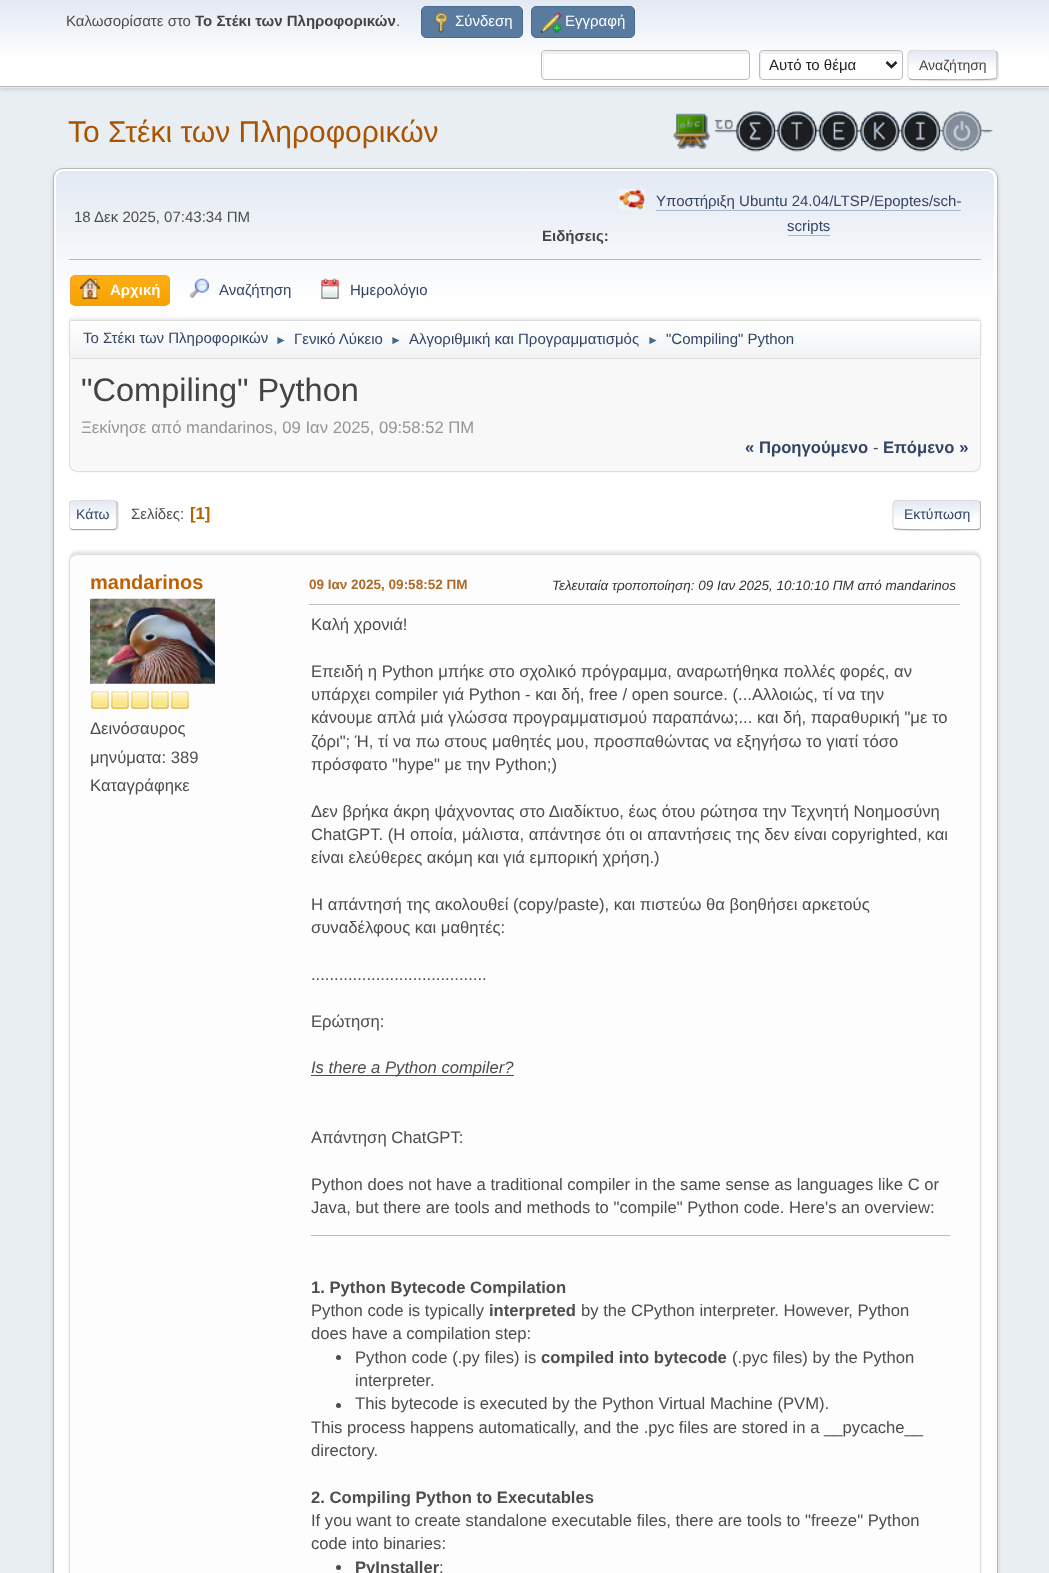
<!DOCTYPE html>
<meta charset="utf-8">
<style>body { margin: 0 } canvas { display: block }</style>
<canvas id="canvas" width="1049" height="1573"></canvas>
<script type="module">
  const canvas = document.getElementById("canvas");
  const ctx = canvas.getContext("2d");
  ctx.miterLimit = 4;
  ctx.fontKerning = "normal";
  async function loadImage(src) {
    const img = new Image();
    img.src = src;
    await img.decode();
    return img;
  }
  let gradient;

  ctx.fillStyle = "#e9eef2";
  ctx.fillRect(0, 0, 1049, 1573);
  ctx.fillStyle = "rgba(0, 0, 0, 0.16)";
  ctx.filter = "blur(2.5px)";
  ctx.beginPath();
  ctx.rect(0, 1, 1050, 88);
  ctx.fill();
  ctx.filter = "none";
  gradient = ctx.createLinearGradient(525, 0, 525, 86);
  gradient.addColorStop(0, "#e2e9f3");
  gradient.addColorStop(0.7, "#ffffff");
  ctx.fillStyle = gradient;
  ctx.fillRect(0, 0, 1049, 86);
  gradient = ctx.createLinearGradient(525, 86, 525, 173);
  gradient.addColorStop(0, "#e2e9f3");
  gradient.addColorStop(0.7, "#ffffff");
  ctx.fillStyle = gradient;
  ctx.fillRect(0, 87, 1049, 1);
  ctx.fillStyle = "#bbbbbb";
  ctx.fillRect(0, 86, 1049, 1);
  ctx.font = "15px Liberation Sans";
  ctx.fillStyle = "#4d4d4d";
  ctx.fillText("Καλωσορίσατε στο", 66, 26);
  ctx.font = "bold 15px Liberation Sans";
  ctx.fillStyle = "#444444";
  ctx.fillText("Το Στέκι των Πληροφορικών", 195, 26);
  ctx.font = "15px Liberation Sans";
  ctx.fillStyle = "#4d4d4d";
  ctx.fillText(".", 396, 26);
  ctx.fillStyle = "#597b9f";
  ctx.beginPath();
  ctx.roundRect(421.5, 6.5, 101, 31, 4.5);
  ctx.fill();
  ctx.strokeStyle = "#4a6b8c";
  ctx.stroke();
  ctx.drawImage(await loadImage("img1.png"), 434, 12, 14, 21);
  ctx.fillStyle = "#ffffff";
  ctx.fillText("Σύνδεση", 455, 26);
  ctx.fillStyle = "#597b9f";
  ctx.beginPath();
  ctx.roundRect(531.5, 6.5, 103, 31, 4.5);
  ctx.fill();
  ctx.stroke();
  ctx.drawImage(await loadImage("img2.png"), 541, 12, 21, 21);
  ctx.fillStyle = "#ffffff";
  ctx.fillText("Εγγραφή", 565, 26);
  ctx.beginPath();
  ctx.roundRect(541, 50, 209, 30, 4);
  ctx.fill();
  ctx.fillStyle = "#ecf1f8";
  ctx.beginPath();
  ctx.moveTo(546, 54);
  ctx.lineTo(749, 54);
  ctx.bezierCurveTo(749, 53, 748, 51, 746, 51);
  ctx.lineTo(546, 51);
  ctx.bezierCurveTo(542, 51, 543, 55, 543, 57);
  ctx.lineTo(543, 76);
  ctx.lineTo(544, 79);
  ctx.lineTo(544, 56);
  ctx.bezierCurveTo(544, 55, 545, 54, 546, 54);
  ctx.closePath();
  ctx.fill();
  ctx.beginPath();
  ctx.roundRect(541.5, 50.5, 208, 29, 3.5);
  ctx.strokeStyle = "#bbbbbb";
  ctx.stroke();
  ctx.fillStyle = "#ffffff";
  ctx.beginPath();
  ctx.roundRect(759, 50, 144, 30, 4);
  ctx.fill();
  ctx.fillStyle = "#ecf1f8";
  ctx.beginPath();
  ctx.moveTo(764, 54);
  ctx.lineTo(901, 54);
  ctx.bezierCurveTo(901, 52, 900, 51, 898, 51);
  ctx.lineTo(762, 51);
  ctx.bezierCurveTo(761, 51, 760, 52, 760, 54);
  ctx.lineTo(760, 76);
  ctx.bezierCurveTo(760, 77, 760, 78, 761, 79);
  ctx.lineTo(761, 56);
  ctx.bezierCurveTo(761, 55, 762, 54, 764, 54);
  ctx.closePath();
  ctx.fill();
  ctx.beginPath();
  ctx.roundRect(759.5, 50.5, 143, 29, 3.5);
  ctx.stroke();
  ctx.beginPath();
  ctx.moveTo(886.5, 62);
  ctx.lineTo(891.5, 67);
  ctx.lineTo(896.5, 62);
  ctx.strokeStyle = "#222222";
  ctx.lineWidth = 2.5;
  ctx.stroke();
  ctx.fillStyle = "#222222";
  ctx.fillText("Αυτό το θέμα", 769, 70);
  ctx.fillStyle = "rgba(221, 221, 221, 0.57)";
  ctx.filter = "blur(0.5px)";
  ctx.beginPath();
  ctx.roundRect(909, 51, 90, 30, 4);
  ctx.fill();
  ctx.filter = "none";
  ctx.fillStyle = "#ffffff";
  ctx.beginPath();
  ctx.roundRect(908, 50, 90, 30, 4);
  ctx.fill();
  ctx.save();
  ctx.beginPath();
  ctx.roundRect(908, 50, 90, 30, 4);
  ctx.clip();
  gradient = ctx.createLinearGradient(953, 51, 953, 79);
  gradient.addColorStop(0, "#e2e9f3");
  gradient.addColorStop(0.7, "#ffffff");
  ctx.fillStyle = gradient;
  ctx.fillRect(908, 51, 90, 28);
  gradient = ctx.createLinearGradient(953, 79, 953, 106);
  gradient.addColorStop(0, "#e2e9f3");
  gradient.addColorStop(0.7, "#ffffff");
  ctx.fillStyle = gradient;
  ctx.fillRect(908, 79, 90, 1);
  ctx.restore();
  ctx.beginPath();
  ctx.moveTo(996, 51.5);
  ctx.bezierCurveTo(996.5, 52, 997, 53, 997, 54);
  ctx.lineTo(997, 76);
  ctx.bezierCurveTo(997, 77, 996.5, 78, 996, 78.5);
  ctx.strokeStyle = "#bbbbbb";
  ctx.lineWidth = 1.2;
  ctx.stroke();
  ctx.beginPath();
  ctx.moveTo(996, 78.5);
  ctx.lineTo(995.5, 78.5);
  ctx.bezierCurveTo(993.5, 80.5, 933, 79.5, 925, 79.5);
  ctx.lineTo(911, 79.5);
  ctx.lineTo(909, 78.5);
  ctx.strokeStyle = "#aaaaaa";
  ctx.stroke();
  ctx.beginPath();
  ctx.moveTo(909, 78.5);
  ctx.bezierCurveTo(907, 76.5, 908, 67.5, 908, 65);
  ctx.bezierCurveTo(908, 47.5, 906, 50.5, 925, 50.5);
  ctx.lineTo(994, 50.5);
  ctx.lineTo(996, 51.5);
  ctx.strokeStyle = "#dddddd";
  ctx.stroke();
  ctx.font = "14px Liberation Sans";
  ctx.fillStyle = "#444444";
  ctx.fillText("Αναζήτηση", 919, 70);
  ctx.font = "30px Liberation Sans";
  ctx.fillStyle = "#a85400";
  ctx.fillText("Το Στέκι των Πληροφορικών", 68, 142);
  ctx.drawImage(await loadImage("img3.png"), 673, 111, 320, 41);
  ctx.fillStyle = "rgba(0, 0, 0, 0.14)";
  ctx.filter = "blur(2px)";
  ctx.beginPath();
  ctx.roundRect(53, 170, 945, 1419, 10);
  ctx.fill();
  ctx.filter = "none";
  ctx.fillStyle = "#ffffff";
  ctx.beginPath();
  ctx.roundRect(53.5, 168.5, 944, 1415, 9.5);
  ctx.fill();
  ctx.strokeStyle = "#b8b8b8";
  ctx.lineWidth = 1;
  ctx.stroke();
  gradient = ctx.createLinearGradient(525, 171, 525, 361);
  gradient.addColorStop(0, "#e2e9f3");
  gradient.addColorStop(0.7, "#ffffff");
  ctx.fillStyle = gradient;
  ctx.beginPath();
  ctx.roundRect(56, 171, 938, 190, [8, 8, 0, 0]);
  ctx.fill();
  ctx.fillStyle = "#bbbbbb";
  ctx.fillRect(69, 259, 912, 1);
  ctx.font = "15px Liberation Sans";
  ctx.fillStyle = "#4d4d4d";
  ctx.fillText("18 Δεκ 2025, 07:43:34 ΠΜ", 74, 222);
  ctx.drawImage(await loadImage("img4.png"), 618, 189, 27, 21);
  ctx.fillStyle = "#334466";
  ctx.fillText("Υποστήριξη Ubuntu 24.04/LTSP/Epoptes/sch-", 656, 206);
  ctx.fillStyle = "#a8b6cf";
  ctx.fillRect(656, 210, 305, 1);
  ctx.fillStyle = "#334466";
  ctx.fillText("scripts", 787, 231);
  ctx.fillStyle = "#a8b6cf";
  ctx.fillRect(788, 235, 42, 1);
  ctx.font = "bold 15px Liberation Sans";
  ctx.fillStyle = "#444444";
  ctx.fillText("Ειδήσεις:", 542, 241);
  ctx.save();
  ctx.beginPath();
  ctx.roundRect(70, 275, 100, 31, 5);
  ctx.clip();
  gradient = ctx.createLinearGradient(120, 276, 120, 305);
  gradient.addColorStop(0, "#ffae14");
  gradient.addColorStop(1, "#f5a100");
  ctx.fillStyle = gradient;
  ctx.fillRect(70, 276, 100, 29);
  ctx.restore();
  ctx.beginPath();
  ctx.roundRect(70.5, 275.5, 99, 30, 4.5);
  ctx.strokeStyle = "#f49a3a";
  ctx.stroke();
  ctx.drawImage(await loadImage("img5.png"), 80, 278, 20, 21);
  ctx.fillStyle = "#ffffff";
  ctx.fillText("Αρχική", 110, 295);
  ctx.drawImage(await loadImage("img6.png"), 189, 278, 20, 20);
  ctx.font = "15px Liberation Sans";
  ctx.fillStyle = "#334466";
  ctx.fillText("Αναζήτηση", 219, 295);
  ctx.drawImage(await loadImage("img7.png"), 321, 278, 18, 21);
  ctx.fillText("Ημερολόγιο", 350, 295);
  ctx.fillStyle = "rgba(0, 0, 0, 0.08)";
  ctx.filter = "blur(1px)";
  ctx.beginPath();
  ctx.roundRect(69, 318, 912, 38, 2.5);
  ctx.fill();
  ctx.filter = "none";
  ctx.save();
  ctx.beginPath();
  ctx.roundRect(69, 320, 912, 39, 2.5);
  ctx.clip();
  gradient = ctx.createLinearGradient(525, 321, 525, 358);
  gradient.addColorStop(0, "#ffffff");
  gradient.addColorStop(0.95, "#f1f3f5");
  ctx.fillStyle = gradient;
  ctx.fillRect(69, 321, 912, 37);
  ctx.restore();
  ctx.beginPath();
  ctx.roundRect(69.5, 320.5, 911, 38, 2);
  ctx.strokeStyle = "#dddddd";
  ctx.stroke();
  ctx.fillStyle = "#334466";
  ctx.fillText("Το Στέκι των Πληροφορικών", 83, 343);
  ctx.font = "12px Liberation Sans";
  ctx.fillStyle = "#3f6b8c";
  ctx.fillText("►", 275, 344);
  ctx.font = "15px Liberation Sans";
  ctx.fillStyle = "#334466";
  ctx.fillText("Γενικό Λύκειο", 294, 344);
  ctx.font = "12px Liberation Sans";
  ctx.fillStyle = "#3f6b8c";
  ctx.fillText("►", 390, 344);
  ctx.font = "15px Liberation Sans";
  ctx.fillStyle = "#334466";
  ctx.fillText("Αλγοριθμική και Προγραμματισμός", 409, 344);
  ctx.font = "12px Liberation Sans";
  ctx.fillStyle = "#3f6b8c";
  ctx.fillText("►", 647, 344);
  ctx.font = "15px Liberation Sans";
  ctx.fillStyle = "#334466";
  ctx.fillText("\"Compiling\" Python", 666, 344);
  ctx.fillStyle = "#f8f8f8";
  ctx.beginPath();
  ctx.roundRect(69, 359, 912, 114, [0, 0, 9, 9]);
  ctx.fill();
  ctx.fillStyle = "#dddddd";
  ctx.beginPath();
  ctx.moveTo(69, 359);
  ctx.lineTo(981, 359);
  ctx.lineTo(981, 464);
  ctx.bezierCurveTo(981, 469, 977, 472, 972, 472);
  ctx.lineTo(78, 472);
  ctx.bezierCurveTo(73, 472, 69, 469, 69, 464);
  ctx.closePath();
  ctx.moveTo(70, 359);
  ctx.lineTo(980, 359);
  ctx.lineTo(980, 464);
  ctx.bezierCurveTo(980, 468, 977, 471, 972, 471);
  ctx.lineTo(78, 471);
  ctx.bezierCurveTo(73, 471, 70, 468, 70, 464);
  ctx.closePath();
  ctx.fill("evenodd");
  ctx.font = "32.5px Liberation Sans";
  ctx.fillStyle = "#444444";
  ctx.fillText("\"Compiling\" Python", 81, 401);
  ctx.font = "16.65px Liberation Sans";
  ctx.fillStyle = "#959595";
  ctx.fillText("Ξεκίνησε από mandarinos, 09 Ιαν 2025, 09:58:52 ΠΜ", 81, 433);
  ctx.font = "bold 16.65px Liberation Sans";
  ctx.fillStyle = "#334466";
  ctx.fillText("« Προηγούμενο", 745, 453);
  ctx.font = "16.65px Liberation Sans";
  ctx.fillStyle = "#4d4d4d";
  ctx.fillText("-", 873, 453);
  ctx.font = "bold 16.65px Liberation Sans";
  ctx.fillStyle = "#334466";
  ctx.fillText("Επόμενο »", 883, 453);
  ctx.fillStyle = "rgba(221, 221, 221, 0.57)";
  ctx.filter = "blur(0.5px)";
  ctx.beginPath();
  ctx.roundRect(70, 501, 49, 30, 4);
  ctx.fill();
  ctx.filter = "none";
  ctx.fillStyle = "#ffffff";
  ctx.beginPath();
  ctx.roundRect(69, 500, 49, 30, 4);
  ctx.fill();
  ctx.save();
  ctx.beginPath();
  ctx.roundRect(69, 500, 49, 30, 4);
  ctx.clip();
  gradient = ctx.createLinearGradient(93, 501, 93, 529);
  gradient.addColorStop(0, "#e2e9f3");
  gradient.addColorStop(0.7, "#ffffff");
  ctx.fillStyle = gradient;
  ctx.fillRect(69, 501, 49, 28);
  gradient = ctx.createLinearGradient(93, 529, 93, 556);
  gradient.addColorStop(0, "#e2e9f3");
  gradient.addColorStop(0.7, "#ffffff");
  ctx.fillStyle = gradient;
  ctx.fillRect(69, 529, 49, 1);
  ctx.restore();
  ctx.beginPath();
  ctx.moveTo(116, 501.5);
  ctx.bezierCurveTo(116.5, 502, 117, 503, 117, 504);
  ctx.lineTo(117, 526);
  ctx.bezierCurveTo(117, 527, 116.5, 528, 116, 528.5);
  ctx.strokeStyle = "#bbbbbb";
  ctx.lineWidth = 1.2;
  ctx.stroke();
  ctx.beginPath();
  ctx.moveTo(116, 528.5);
  ctx.lineTo(114, 529.5);
  ctx.lineTo(72.5, 529.5);
  ctx.lineTo(70.5, 528.5);
  ctx.strokeStyle = "#aaaaaa";
  ctx.stroke();
  ctx.save();
  ctx.beginPath();
  ctx.rect(69, 491, 912, 48);
  ctx.clip();
  ctx.beginPath();
  ctx.moveTo(70.5, 528.5);
  ctx.bezierCurveTo(68, 526.5, 69.5, 517.5, 69.5, 515);
  ctx.bezierCurveTo(69.5, 501, 66.5, 500.5, 79.5, 500.5);
  ctx.lineTo(107, 500.5);
  ctx.bezierCurveTo(108, 500.5, 114, 499.5, 116, 501.5);
  ctx.strokeStyle = "#dddddd";
  ctx.stroke();
  ctx.restore();
  ctx.font = "14px Liberation Sans";
  ctx.fillStyle = "#334466";
  ctx.fillText("Κάτω", 76, 519);
  ctx.font = "15px Liberation Sans";
  ctx.fillStyle = "#4d4d4d";
  ctx.fillText("Σελίδες:", 131, 519);
  ctx.font = "bold 16.65px Liberation Sans";
  ctx.fillStyle = "#b46100";
  ctx.fillText("[1]", 190, 519);
  ctx.save();
  ctx.beginPath();
  ctx.rect(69, 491, 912, 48);
  ctx.clip();
  ctx.fillStyle = "rgba(221, 221, 221, 0.57)";
  ctx.filter = "blur(0.5px)";
  ctx.beginPath();
  ctx.roundRect(894, 501, 89, 30, 4);
  ctx.fill();
  ctx.filter = "none";
  ctx.restore();
  ctx.save();
  ctx.beginPath();
  ctx.roundRect(893, 500, 88, 30, 4);
  ctx.clip();
  gradient = ctx.createLinearGradient(937, 501, 937, 529);
  gradient.addColorStop(0, "#e2e9f3");
  gradient.addColorStop(0.7, "#ffffff");
  ctx.fillStyle = gradient;
  ctx.fillRect(893, 501, 88, 28);
  gradient = ctx.createLinearGradient(937, 529, 937, 556);
  gradient.addColorStop(0, "#e2e9f3");
  gradient.addColorStop(0.7, "#ffffff");
  ctx.fillStyle = gradient;
  ctx.fillRect(893, 529, 88, 1);
  ctx.restore();
  ctx.save();
  ctx.beginPath();
  ctx.rect(69, 491, 912, 48);
  ctx.clip();
  ctx.beginPath();
  ctx.moveTo(979.5, 501.5);
  ctx.bezierCurveTo(980.5, 502, 980.5, 503, 980.5, 504);
  ctx.lineTo(980.5, 526);
  ctx.bezierCurveTo(980.5, 527, 980.5, 528, 979.5, 528.5);
  ctx.strokeStyle = "#bbbbbb";
  ctx.stroke();
  ctx.restore();
  ctx.beginPath();
  ctx.moveTo(979.5, 528.5);
  ctx.lineTo(977.5, 529.5);
  ctx.lineTo(964, 529.5);
  ctx.bezierCurveTo(956.5, 529.5, 896.5, 530.5, 894.5, 528.5);
  ctx.lineTo(894, 528.5);
  ctx.stroke();
  ctx.beginPath();
  ctx.moveTo(894, 528.5);
  ctx.bezierCurveTo(892, 526.5, 893, 517.5, 893, 515);
  ctx.bezierCurveTo(893, 497.5, 891, 500.5, 910, 500.5);
  ctx.lineTo(977.5, 500.5);
  ctx.lineTo(979.5, 501.5);
  ctx.strokeStyle = "#dddddd";
  ctx.stroke();
  ctx.font = "14px Liberation Sans";
  ctx.fillStyle = "#334466";
  ctx.fillText("Εκτύπωση", 904, 519);
  ctx.fillStyle = "rgba(0, 0, 0, 0.1)";
  ctx.filter = "blur(1px)";
  ctx.beginPath();
  ctx.roundRect(69, 551, 912, 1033, 8);
  ctx.fill();
  ctx.filter = "none";
  ctx.fillStyle = "#fdfdfd";
  ctx.beginPath();
  ctx.roundRect(69.5, 554.5, 911, 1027, 7.5);
  ctx.fill();
  ctx.lineWidth = 1;
  ctx.stroke();
  ctx.font = "bold 20px Liberation Sans";
  ctx.fillStyle = "#c06002";
  ctx.fillText("mandarinos", 90, 589);
  ctx.drawImage(await loadImage("img8.png"), 90, 598, 125, 86);
  ctx.drawImage(await loadImage("img9.png"), 91, 691, 18, 18);
  ctx.drawImage(await loadImage("img9.png"), 111, 691, 18, 18);
  ctx.drawImage(await loadImage("img9.png"), 131, 691, 18, 18);
  ctx.drawImage(await loadImage("img9.png"), 151, 691, 18, 18);
  ctx.drawImage(await loadImage("img9.png"), 171, 691, 18, 18);
  ctx.font = "16.65px Liberation Sans";
  ctx.fillStyle = "#4d4d4d";
  ctx.fillText("Δεινόσαυρος", 90, 734);
  ctx.fillText("μηνύματα: 389", 90, 763);
  ctx.fillText("Καταγράφηκε", 90, 791);
  ctx.font = "bold 13.5px Liberation Sans";
  ctx.fillStyle = "#ad6825";
  ctx.fillText("09 Ιαν 2025, 09:58:52 ΠΜ", 309, 589);
  ctx.font = "italic 13.5px Liberation Sans";
  ctx.fillStyle = "#333333";
  ctx.fillText("Τελευταία τροποποίηση: 09 Ιαν 2025, 10:10:10 ΠΜ από mandarinos", 552, 590);
  ctx.fillStyle = "#bfbfbf";
  ctx.fillRect(309, 604, 651, 1);
  ctx.font = "16.65px Liberation Sans";
  ctx.fillStyle = "#4d4d4d";
  ctx.fillText("Καλή χρονιά!", 311, 630);
  ctx.fillText("Επειδή η Python μπήκε στο σχολικό πρόγραμμα, αναρωτήθηκα πολλές φορές, αν", 311, 677);
  ctx.fillText("υπάρχει compiler γιά Python - και δή, free / open source. (...Αλλοιώς, τί να την", 311, 700);
  ctx.fillText("κάνουμε απλά μιά γλώσσα προγραμματισμού παραπάνω;... και δή, παραθυρική \"με το", 311, 723);
  ctx.fillText("ζόρι\"; Ή, τί να πω στους μαθητές μου, προσπαθώντας να εξηγήσω το γιατί τόσο", 311, 747);
  ctx.fillText("πρόσφατο \"hype\" με την Python;)", 311, 770);
  ctx.fillText("Δεν βρήκα άκρη ψάχνοντας στο Διαδίκτυο, έως ότου ρώτησα την Τεχνητή Νοημοσύνη", 311, 817);
  ctx.fillText("ChatGPT. (Η οποία, μάλιστα, απάντησε ότι οι απαντήσεις της δεν είναι copyrighted, και", 311, 840);
  ctx.fillText("είναι ελεύθερες ακόμη και γιά εμπορική χρήση.)", 311, 863);
  ctx.fillText("Η απάντησή της ακολουθεί (copy/paste), και πιστεύω θα βοηθήσει αρκετούς", 311, 910);
  ctx.fillText("συναδέλφους και μαθητές:", 311, 933);
  ctx.fillText("......................................", 311, 980);
  ctx.fillText("Ερώτηση:", 311, 1027);
  ctx.fillRect(311, 1075, 203, 1);
  ctx.font = "italic 16.65px Liberation Sans";
  ctx.fillText("Is there a Python compiler?", 311, 1073);
  ctx.font = "16.65px Liberation Sans";
  ctx.fillText("Απάντηση ChatGPT:", 311, 1143);
  ctx.fillText("Python does not have a traditional compiler in the same sense as languages like C or", 311, 1190);
  ctx.fillText("Java, but there are tools and methods to \"compile\" Python code. Here's an overview:", 311, 1213);
  ctx.fillStyle = "#bbbbbb";
  ctx.fillRect(311, 1235, 639, 1);
  ctx.font = "bold 16.65px Liberation Sans";
  ctx.fillStyle = "#4d4d4d";
  ctx.fillText("1. Python Bytecode Compilation", 311, 1293);
  ctx.font = "16.65px Liberation Sans";
  ctx.fillText("Python code is typically", 311, 1316);
  ctx.font = "bold 16.65px Liberation Sans";
  ctx.fillText("interpreted", 489, 1316);
  ctx.font = "16.65px Liberation Sans";
  ctx.fillText("by the CPython interpreter. However, Python", 581, 1316);
  ctx.fillText("does have a compilation step:", 311, 1339);
  ctx.beginPath();
  ctx.arc(338.5, 1357.5, 2.5, 0, Math.PI * 2);
  ctx.fill();
  ctx.fillText("Python code (.py files) is", 355, 1363);
  ctx.font = "bold 16.65px Liberation Sans";
  ctx.fillText("compiled into bytecode", 541, 1363);
  ctx.font = "16.65px Liberation Sans";
  ctx.fillText("(.pyc files) by the Python", 732, 1363);
  ctx.fillText("interpreter.", 355, 1386);
  ctx.beginPath();
  ctx.arc(338.5, 1405.5, 2.5, 0, Math.PI * 2);
  ctx.fill();
  ctx.fillText("This bytecode is executed by the Python Virtual Machine (PVM).", 355, 1409);
  ctx.fillText("This process happens automatically, and the .pyc files are stored in a __pycache__", 311, 1433);
  ctx.fillText("directory.", 311, 1456);
  ctx.font = "bold 16.65px Liberation Sans";
  ctx.fillText("2. Compiling Python to Executables", 311, 1503);
  ctx.font = "16.65px Liberation Sans";
  ctx.fillText("If you want to create standalone executable files, there are tools to \"freeze\" Python", 311, 1526);
  ctx.fillText("code into binaries:", 311, 1549);
  ctx.beginPath();
  ctx.arc(338.5, 1567.5, 2.5, 0, Math.PI * 2);
  ctx.fill();
  ctx.font = "bold 16.65px Liberation Sans";
  ctx.fillText("PyInstaller", 355, 1573);
  ctx.font = "16.65px Liberation Sans";
  ctx.fillText(":", 439, 1573);
</script>
